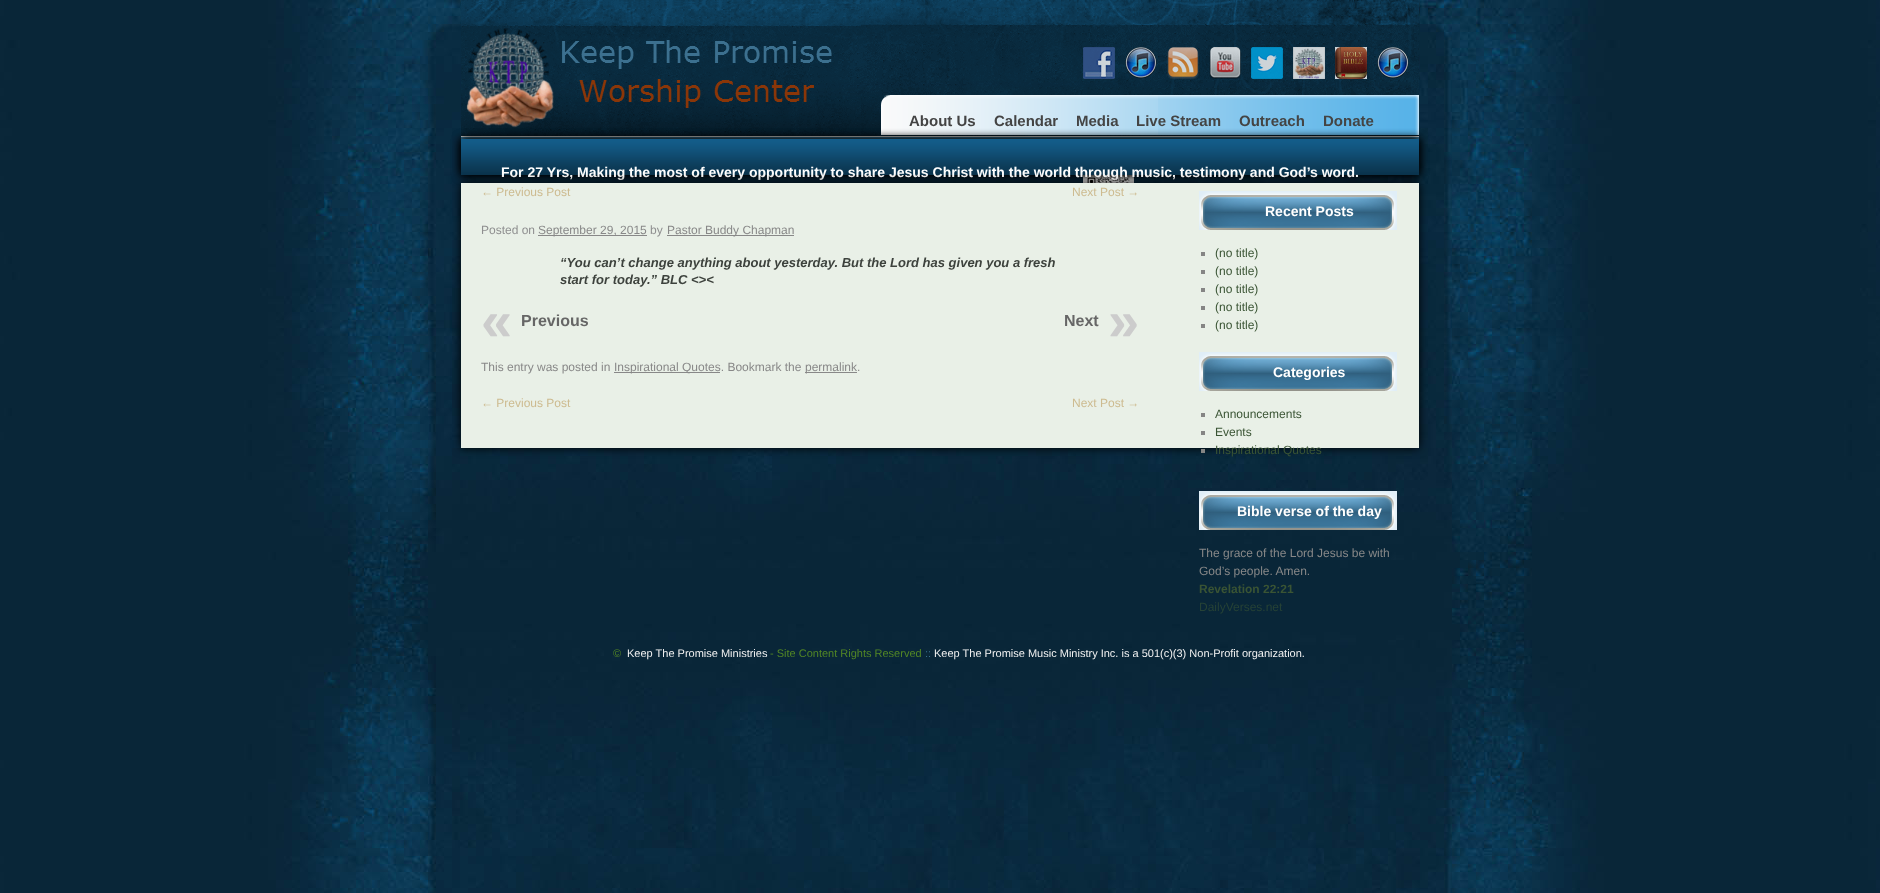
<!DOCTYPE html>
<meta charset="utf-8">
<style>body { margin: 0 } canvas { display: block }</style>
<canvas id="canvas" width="1880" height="893"></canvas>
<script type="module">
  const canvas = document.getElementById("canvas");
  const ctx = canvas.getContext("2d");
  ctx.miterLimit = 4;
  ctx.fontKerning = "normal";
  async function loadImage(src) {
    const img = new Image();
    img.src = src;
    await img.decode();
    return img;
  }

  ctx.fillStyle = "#ffffff";
  ctx.fillRect(0, 0, 1880, 893);
  ctx.drawImage(await loadImage("img1.png"), 0, 0, 1880, 893);
  ctx.drawImage(await loadImage("img2.png"), 461, 0, 400, 139);
  ctx.drawImage(await loadImage("img3.png"), 461, 28, 394, 108);
  ctx.drawImage(await loadImage("img4.png"), 861, 0, 558, 139);
  ctx.drawImage(await loadImage("img5.png"), 1083, 47, 32, 32);
  ctx.drawImage(await loadImage("img6.png"), 1125, 47, 32, 32);
  ctx.drawImage(await loadImage("img7.png"), 1167, 47, 32, 32);
  ctx.drawImage(await loadImage("img8.png"), 1209, 47, 32, 32);
  ctx.drawImage(await loadImage("img9.png"), 1251, 47, 32, 32);
  ctx.drawImage(await loadImage("img10.png"), 1293, 47, 32, 32);
  ctx.drawImage(await loadImage("img11.png"), 1335, 47, 32, 32);
  ctx.drawImage(await loadImage("img12.png"), 1377, 47, 32, 32);
  ctx.drawImage(await loadImage("img13.png"), 1083, 175, 51, 8);
  ctx.fillStyle = "#000000";
  ctx.filter = "blur(5px)";
  ctx.beginPath();
  ctx.rect(461, 139, 958, 36);
  ctx.fill();
  ctx.filter = "none";
  ctx.drawImage(await loadImage("img14.png"), 461, 139, 958, 36);
  ctx.save();
  ctx.beginPath();
  ctx.moveTo(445, 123);
  ctx.lineTo(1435, 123);
  ctx.lineTo(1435, 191);
  ctx.lineTo(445, 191);
  ctx.closePath();
  ctx.moveTo(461, 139);
  ctx.lineTo(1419, 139);
  ctx.lineTo(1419, 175);
  ctx.lineTo(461, 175);
  ctx.closePath();
  ctx.clip("evenodd");
  ctx.filter = "blur(5px)";
  ctx.beginPath();
  ctx.rect(461, 139, 958, 36);
  ctx.fill();
  ctx.filter = "none";
  ctx.restore();
  ctx.font = "bold 15px Liberation Sans";
  ctx.fillStyle = "#444444";
  ctx.fillText("About Us", 909, 126);
  ctx.fillText("Calendar", 994, 126);
  ctx.fillText("Media", 1076, 126);
  ctx.fillText("Live Stream", 1136, 126);
  ctx.fillText("Outreach", 1239, 126);
  ctx.fillText("Donate", 1323, 126);
  ctx.font = "bold 14px Liberation Sans";
  ctx.fillStyle = "#ffffff";
  ctx.fillText("For 27 Yrs, Making the most of every opportunity to share Jesus Christ with the world through music, testimony and God’s word.", 501, 177);
  ctx.fillStyle = "#000000";
  ctx.filter = "blur(5px)";
  ctx.beginPath();
  ctx.rect(461, 183, 958, 265);
  ctx.fill();
  ctx.filter = "none";
  ctx.fillStyle = "#e9f0e7";
  ctx.fillRect(461, 183, 958, 265);
  ctx.font = "12px Liberation Sans";
  ctx.fillStyle = "#cdbb90";
  ctx.fillText("← Previous Post", 481, 196);
  ctx.fillText("Next Post →", 1072, 196);
  ctx.fillStyle = "#8f8f90";
  ctx.fillText("Posted on", 481, 234);
  ctx.fillStyle = "#888888";
  ctx.fillRect(538, 235, 109, 1);
  ctx.fillText("September 29, 2015", 538, 234);
  ctx.fillStyle = "#8f8f90";
  ctx.fillText("by", 650, 234);
  ctx.fillStyle = "#888888";
  ctx.fillRect(667, 235, 127, 1);
  ctx.fillText("Pastor Buddy Chapman", 667, 234);
  ctx.font = "italic bold 13px Liberation Sans";
  ctx.fillStyle = "#3d423d";
  ctx.fillText("“You can’t change anything about yesterday. But the Lord has given you a fresh", 560, 267);
  ctx.fillText("start for today.” BLC <><", 560, 284);
  ctx.font = "bold 56px Liberation Sans";
  ctx.fillStyle = "#cccccc";
  ctx.fillText("«", 481, 340);
  ctx.font = "bold 16px Liberation Sans";
  ctx.fillStyle = "#666666";
  ctx.fillText("Previous", 521, 326);
  ctx.fillText("Next", 1064, 326);
  ctx.font = "bold 56px Liberation Sans";
  ctx.fillStyle = "#cccccc";
  ctx.fillText("»", 1108, 340);
  ctx.font = "12px Liberation Sans";
  ctx.fillStyle = "#888888";
  ctx.fillText("This entry was posted in", 481, 371);
  ctx.fillRect(614, 372, 106, 1);
  ctx.fillText("Inspirational Quotes. Bookmark the", 614, 371);
  ctx.fillRect(805, 372, 52, 1);
  ctx.fillText("permalink.", 805, 371);
  ctx.fillStyle = "#cdbb90";
  ctx.fillText("← Previous Post", 481, 407);
  ctx.fillText("Next Post →", 1072, 407);
  ctx.drawImage(await loadImage("img15.png"), 1199, 191, 198, 39);
  ctx.font = "bold 14px Liberation Sans";
  ctx.fillStyle = "#ffffff";
  ctx.fillText("Recent Posts", 1265, 216);
  ctx.fillStyle = "#858584";
  ctx.fillRect(1201, 252, 4, 4);
  ctx.font = "12px Liberation Sans";
  ctx.fillStyle = "#3a5434";
  ctx.fillText("(no title)", 1215, 257);
  ctx.fillStyle = "#858584";
  ctx.fillRect(1201, 270, 4, 4);
  ctx.fillStyle = "#3a5434";
  ctx.fillText("(no title)", 1215, 275);
  ctx.fillStyle = "#858584";
  ctx.fillRect(1201, 288, 4, 4);
  ctx.fillStyle = "#3a5434";
  ctx.fillText("(no title)", 1215, 293);
  ctx.fillStyle = "#858584";
  ctx.fillRect(1201, 306, 4, 4);
  ctx.fillStyle = "#3a5434";
  ctx.fillText("(no title)", 1215, 311);
  ctx.fillStyle = "#858584";
  ctx.fillRect(1201, 324, 4, 4);
  ctx.fillStyle = "#3a5434";
  ctx.fillText("(no title)", 1215, 329);
  ctx.drawImage(await loadImage("img15.png"), 1199, 352, 198, 39);
  ctx.font = "bold 14px Liberation Sans";
  ctx.fillStyle = "#ffffff";
  ctx.fillText("Categories", 1273, 377);
  ctx.fillStyle = "#858584";
  ctx.fillRect(1201, 413, 4, 4);
  ctx.font = "12px Liberation Sans";
  ctx.fillStyle = "#3a5434";
  ctx.fillText("Announcements", 1215, 418);
  ctx.fillStyle = "#858584";
  ctx.fillRect(1201, 431, 4, 4);
  ctx.fillStyle = "#3a5434";
  ctx.fillText("Events", 1215, 436);
  ctx.fillStyle = "#858584";
  ctx.fillRect(1201, 449, 4, 4);
  ctx.fillStyle = "#3a5434";
  ctx.fillText("Inspirational Quotes", 1215, 454);
  ctx.drawImage(await loadImage("img15.png"), 1199, 491, 198, 39);
  ctx.font = "bold 14px Liberation Sans";
  ctx.fillStyle = "#ffffff";
  ctx.fillText("Bible verse of the day", 1237, 516);
  ctx.font = "12px Liberation Sans";
  ctx.fillStyle = "#888888";
  ctx.fillText("The grace of the Lord Jesus be with", 1199, 557);
  ctx.fillText("God’s people. Amen.", 1199, 575);
  ctx.font = "bold 12px Liberation Sans";
  ctx.fillStyle = "#3a5434";
  ctx.fillText("Revelation 22:21", 1199, 593);
  ctx.font = "12px Liberation Sans";
  ctx.fillStyle = "#264236";
  ctx.fillText("DailyVerses.net", 1199, 611);
  ctx.font = "11px Liberation Sans";
  ctx.fillStyle = "#528625";
  ctx.fillText("©", 613, 657);
  ctx.fillStyle = "#f1f1f1";
  ctx.fillText("Keep The Promise Ministries", 627, 657);
  ctx.fillStyle = "#528625";
  ctx.fillText("- Site Content Rights Reserved", 770, 657);
  ctx.fillStyle = "#386f8e";
  ctx.fillText("::", 925, 657);
  ctx.fillStyle = "#f1f1f1";
  ctx.fillText("Keep The Promise Music Ministry Inc. is a 501(c)(3) Non-Profit organization.", 934, 657);
</script>
